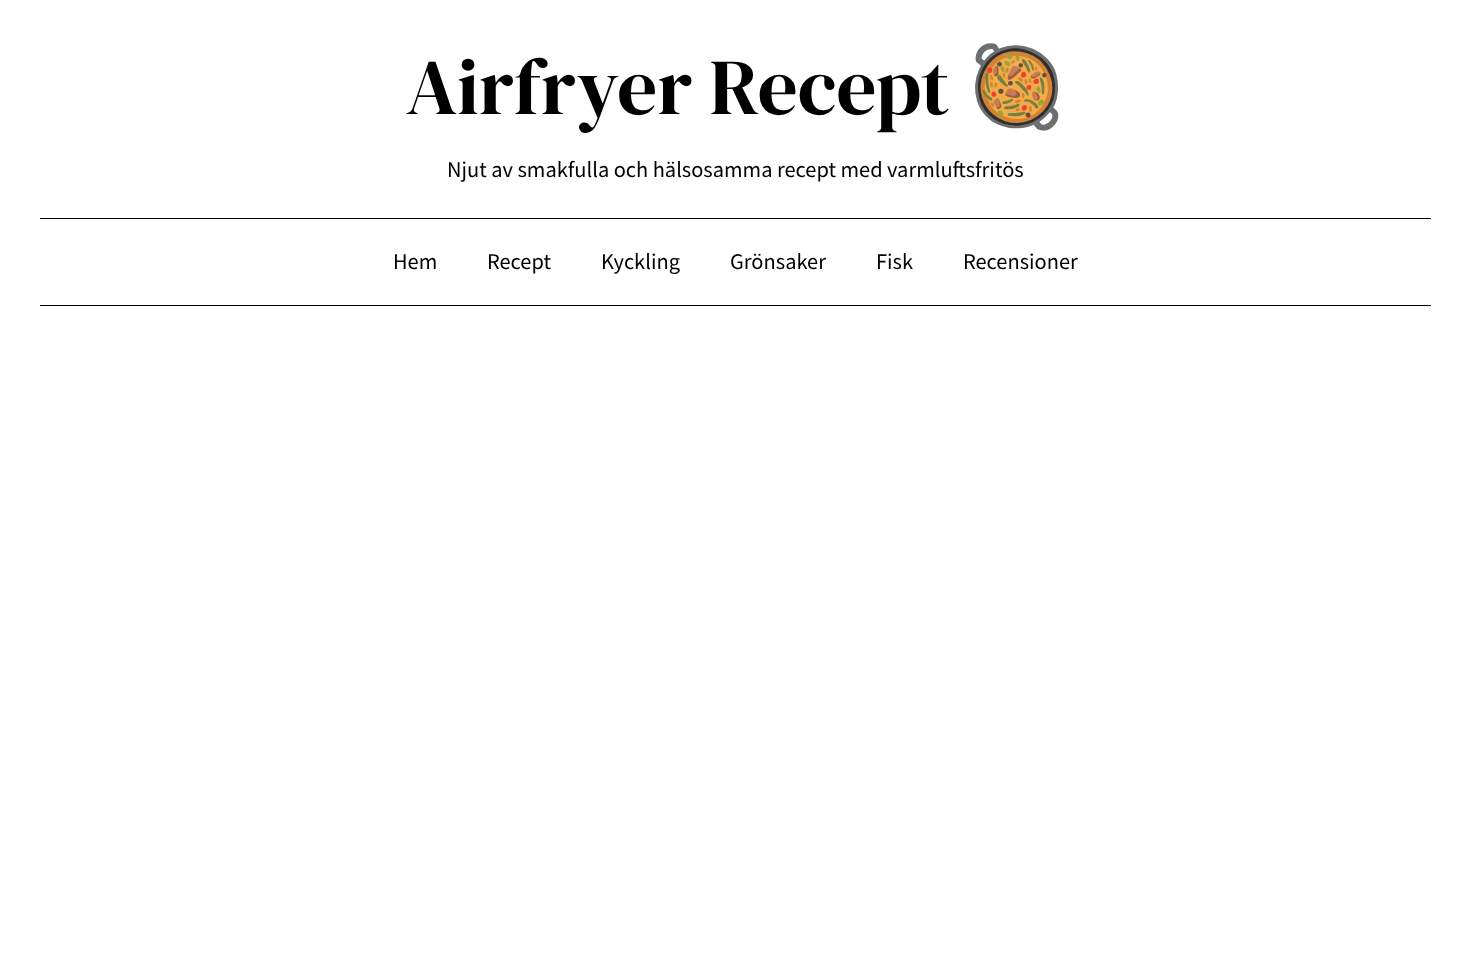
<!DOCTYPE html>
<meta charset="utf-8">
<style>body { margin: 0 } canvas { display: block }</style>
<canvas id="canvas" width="1471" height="970"></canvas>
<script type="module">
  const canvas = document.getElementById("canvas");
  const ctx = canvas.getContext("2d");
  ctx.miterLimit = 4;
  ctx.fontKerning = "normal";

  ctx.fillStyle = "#ffffff";
  ctx.fillRect(0, 0, 1471, 970);
  ctx.font = "79px DM Serif Display";
  ctx.fillStyle = "#000000";
  ctx.fillText("Airfryer Recept", 406, 114);
  ctx.font = "bold 79px Noto Color Emoji";
  ctx.fillText("🥘", 967, 114);
  ctx.font = "22.4px Source Sans Pro";
  ctx.fillText("Njut av smakfulla och hälsosamma recept med varmluftsfritös", 447, 177);
  ctx.fillRect(40, 218, 1391, 1);
  ctx.fillRect(40, 305, 1391, 1);
  ctx.fillText("Hem", 393, 269);
  ctx.fillText("Recept", 487, 269);
  ctx.fillText("Kyckling", 601, 269);
  ctx.fillText("Grönsaker", 730, 269);
  ctx.fillText("Fisk", 876, 269);
  ctx.fillText("Recensioner", 963, 269);
</script>
